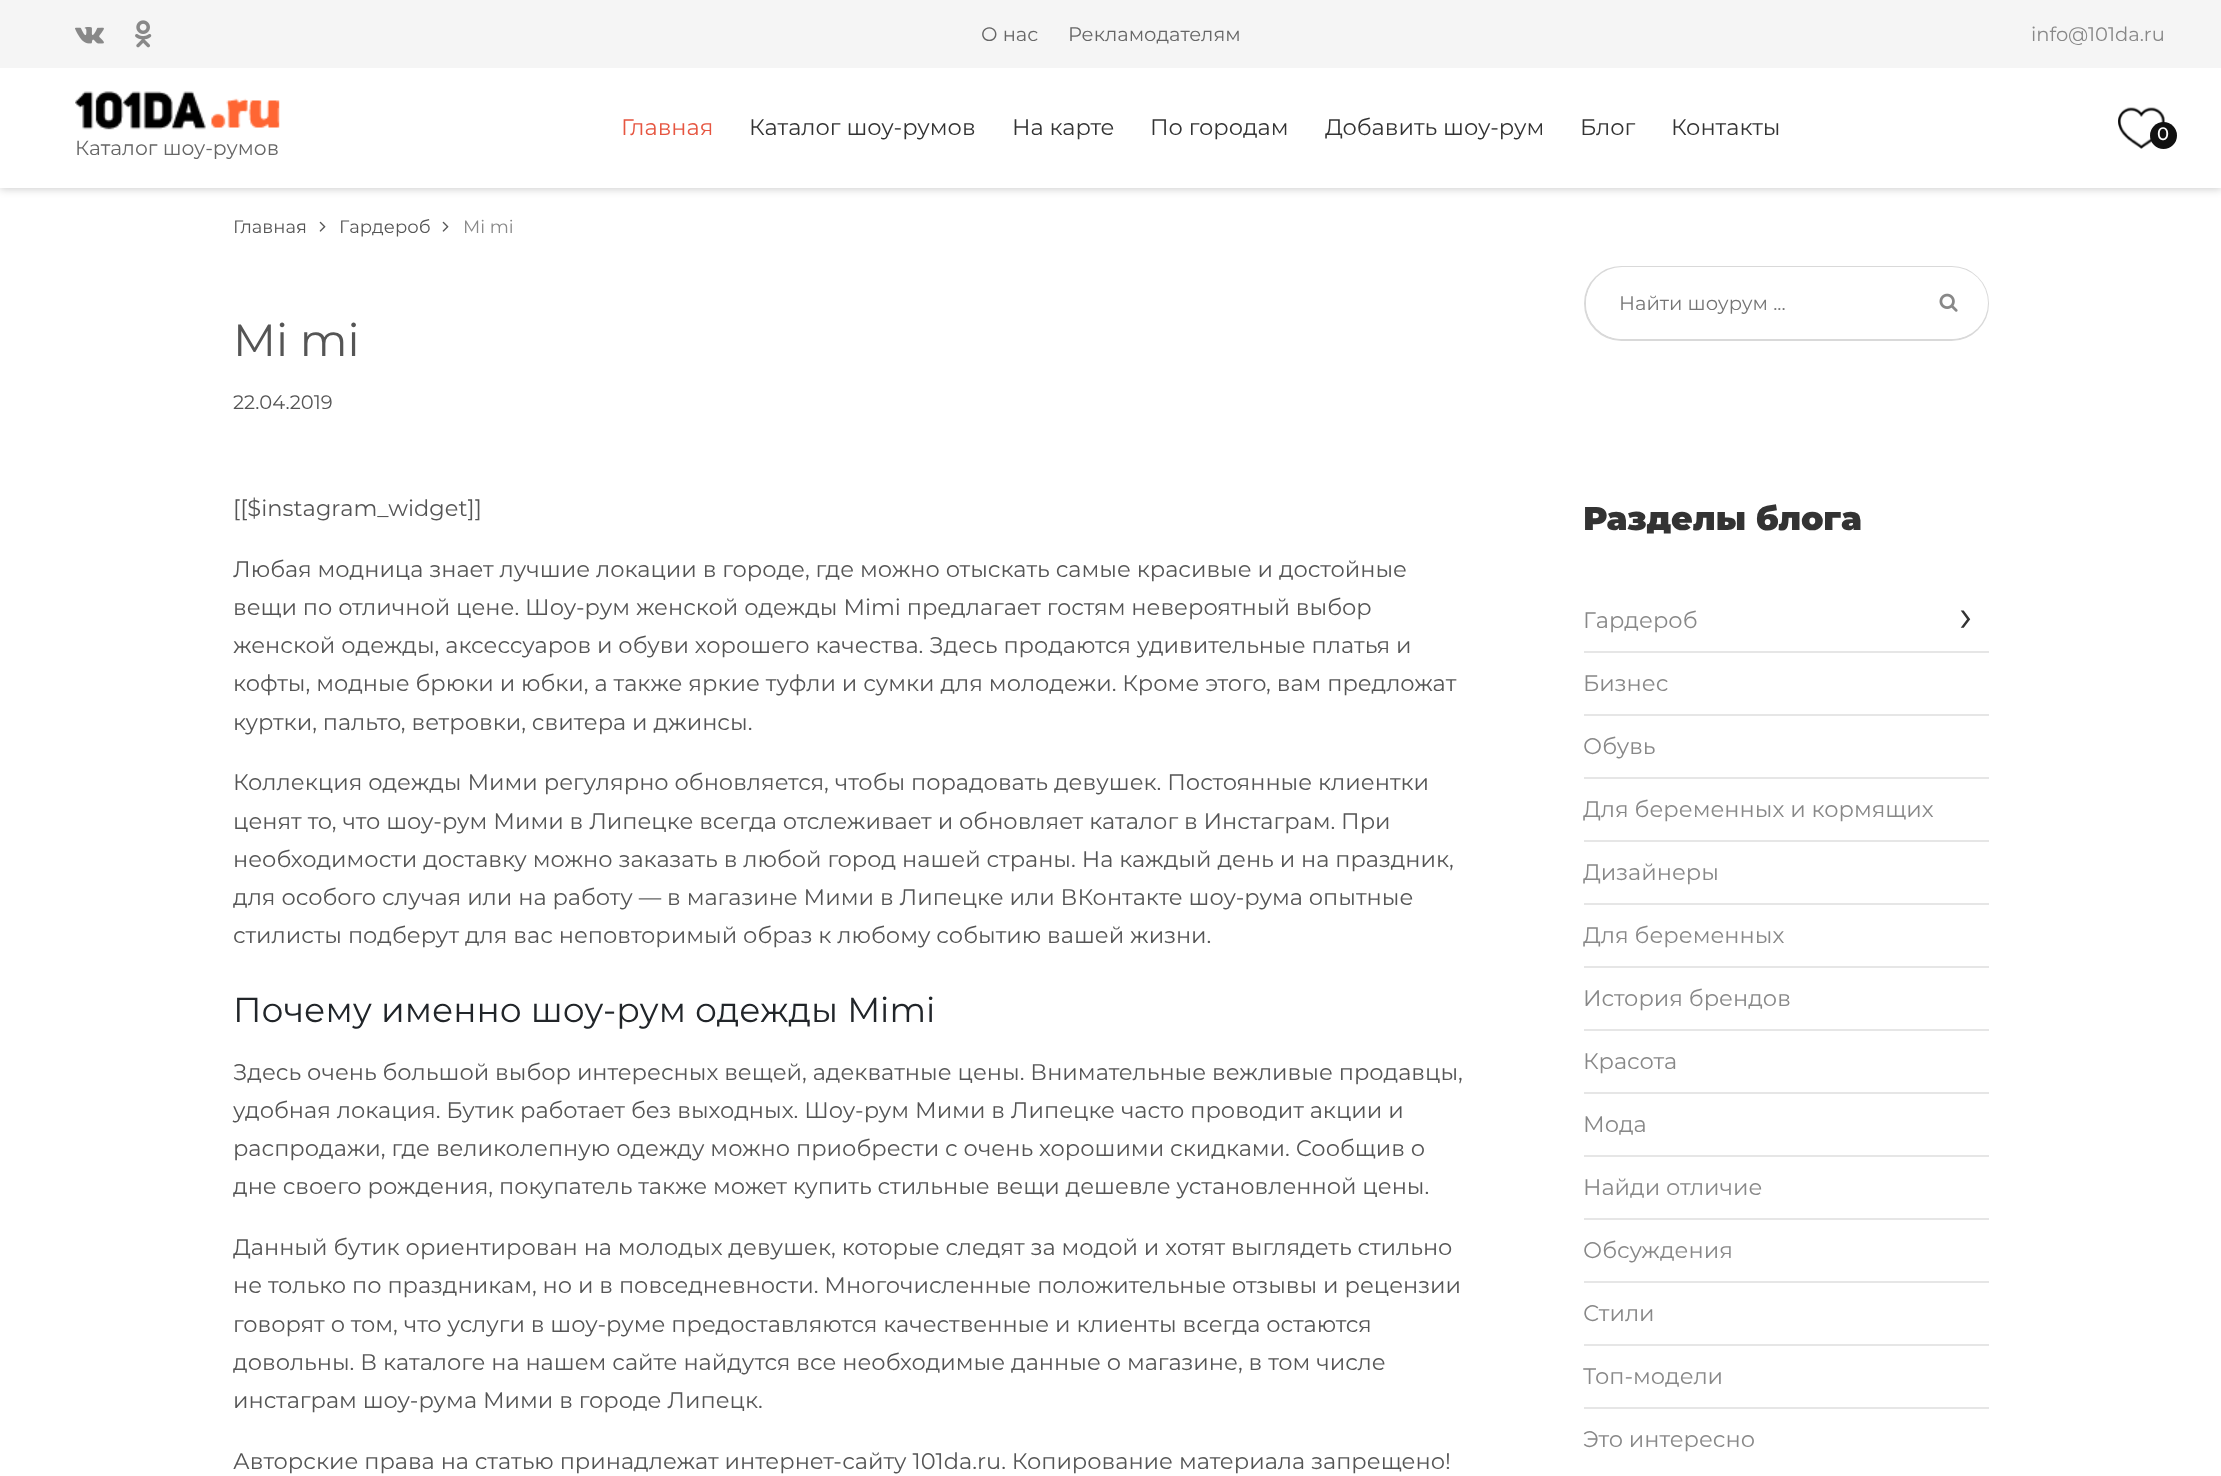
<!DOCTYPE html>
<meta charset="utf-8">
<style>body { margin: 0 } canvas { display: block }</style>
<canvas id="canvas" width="2221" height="1476"></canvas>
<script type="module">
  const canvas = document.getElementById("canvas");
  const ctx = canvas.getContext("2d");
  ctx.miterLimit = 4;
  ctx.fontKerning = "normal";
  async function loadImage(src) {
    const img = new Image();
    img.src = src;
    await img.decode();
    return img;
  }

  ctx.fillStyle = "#ffffff";
  ctx.fillRect(0, 0, 2221, 1476);
  ctx.fillStyle = "rgba(0, 0, 0, 0.2)";
  ctx.filter = "blur(4px)";
  ctx.beginPath();
  ctx.rect(0, 2, 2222, 187);
  ctx.fill();
  ctx.filter = "none";
  ctx.fillStyle = "#f5f5f5";
  ctx.fillRect(0, 0, 2221, 68);
  ctx.drawImage(await loadImage("img1.png"), 75, 27, 29, 17);
  ctx.drawImage(await loadImage("img2.png"), 135, 20, 17, 28);
  ctx.font = "19.5px Montserrat";
  ctx.fillStyle = "#666666";
  ctx.fillText("О нас", 981, 41);
  ctx.fillText("Рекламодателям", 1068, 41);
  ctx.fillStyle = "#888888";
  ctx.fillText("info@101da.ru", 2031, 41);
  ctx.fillStyle = "#ffffff";
  ctx.fillRect(0, 68, 2221, 120);
  ctx.font = "22.5px Montserrat";
  ctx.fillStyle = "#e65540";
  ctx.fillText("Главная", 621, 135);
  ctx.fillStyle = "#333333";
  ctx.fillText("Каталог шоу-румов", 749, 135);
  ctx.fillText("На карте", 1012, 135);
  ctx.fillText("По городам", 1150, 135);
  ctx.fillText("Добавить шоу-рум", 1325, 135);
  ctx.fillText("Блог", 1580, 135);
  ctx.fillText("Контакты", 1671, 135);
  ctx.drawImage(await loadImage("img3.png"), 2118, 107, 47, 42);
  ctx.fillStyle = "#111111";
  ctx.beginPath();
  ctx.arc(2163.5, 135.5, 13.5, 0, Math.PI * 2);
  ctx.fill();
  ctx.font = "500 18px Montserrat";
  ctx.fillStyle = "#ffffff";
  ctx.fillText("0", 2157, 140);
  ctx.drawImage(await loadImage("img4.png"), 75, 91, 205, 39);
  ctx.font = "20.25px Montserrat";
  ctx.fillStyle = "#666666";
  ctx.fillText("Каталог шоу-румов", 75, 155);
  ctx.font = "18px Montserrat";
  ctx.fillStyle = "#555555";
  ctx.fillText("Главная", 233, 233);
  ctx.drawImage(await loadImage("img5.png"), 319, 221, 7, 11);
  ctx.fillText("Гардероб", 339, 233);
  ctx.drawImage(await loadImage("img5.png"), 442, 221, 7, 11);
  ctx.fillStyle = "#888888";
  ctx.fillText("Mi mi", 463, 233);
  ctx.font = "45px Montserrat";
  ctx.fillStyle = "#555555";
  ctx.fillText("Mi mi", 233, 356);
  ctx.font = "19.5px Montserrat";
  ctx.fillText("22.04.2019", 233, 409);
  ctx.font = "22.5px Montserrat";
  ctx.fillText("[[$instagram_widget]]", 233, 516);
  ctx.fillText("Любая модница знает лучшие локации в городе, где можно отыскать самые красивые и достойные", 233, 577);
  ctx.fillText("вещи по отличной цене. Шоу-рум женской одежды Mimi предлагает гостям невероятный выбор", 233, 615);
  ctx.fillText("женской одежды, аксессуаров и обуви хорошего качества. Здесь продаются удивительные платья и", 233, 653);
  ctx.fillText("кофты, модные брюки и юбки, а также яркие туфли и сумки для молодежи. Кроме этого, вам предложат", 233, 691);
  ctx.fillText("куртки, пальто, ветровки, свитера и джинсы.", 233, 730);
  ctx.fillText("Коллекция одежды Мими регулярно обновляется, чтобы порадовать девушек. Постоянные клиентки", 233, 790);
  ctx.fillText("ценят то, что шоу-рум Мими в Липецке всегда отслеживает и обновляет каталог в Инстаграм. При", 233, 829);
  ctx.fillText("необходимости доставку можно заказать в любой город нашей страны. На каждый день и на праздник,", 233, 867);
  ctx.fillText("для особого случая или на работу — в магазине Мими в Липецке или ВКонтакте шоу-рума опытные", 233, 905);
  ctx.fillText("стилисты подберут для вас неповторимый образ к любому событию вашей жизни.", 233, 943);
  ctx.font = "34.5px Montserrat";
  ctx.fillStyle = "#212529";
  ctx.fillText("Почему именно шоу-рум одежды Mimi", 233, 1022);
  ctx.font = "22.5px Montserrat";
  ctx.fillStyle = "#555555";
  ctx.fillText("Здесь очень большой выбор интересных вещей, адекватные цены. Внимательные вежливые продавцы,", 233, 1080);
  ctx.fillText("удобная локация. Бутик работает без выходных. Шоу-рум Мими в Липецке часто проводит акции и", 233, 1118);
  ctx.fillText("распродажи, где великолепную одежду можно приобрести с очень хорошими скидками. Сообщив о", 233, 1156);
  ctx.fillText("дне своего рождения, покупатель также может купить стильные вещи дешевле установленной цены.", 233, 1194);
  ctx.fillText("Данный бутик ориентирован на молодых девушек, которые следят за модой и хотят выглядеть стильно", 233, 1255);
  ctx.fillText("не только по праздникам, но и в повседневности. Многочисленные положительные отзывы и рецензии", 233, 1293);
  ctx.fillText("говорят о том, что услуги в шоу-руме предоставляются качественные и клиенты всегда остаются", 233, 1332);
  ctx.fillText("довольны. В каталоге на нашем сайте найдутся все необходимые данные о магазине, в том числе", 233, 1370);
  ctx.fillText("инстаграм шоу-рума Мими в городе Липецк.", 233, 1408);
  ctx.fillText("Авторские права на статью принадлежат интернет-сайту 101da.ru. Копирование материала запрещено!", 233, 1469);
  ctx.beginPath();
  ctx.roundRect(1585, 267, 403, 73, 36.5);
  ctx.strokeStyle = "#d9d9d9";
  ctx.lineWidth = 2;
  ctx.stroke();
  ctx.fillStyle = "#ffffff";
  ctx.beginPath();
  ctx.roundRect(1586, 267, 402, 72, 36);
  ctx.fill();
  ctx.font = "19.5px Montserrat";
  ctx.fillStyle = "#757575";
  ctx.fillText("Найти шоурум ...", 1619, 310);
  ctx.drawImage(await loadImage("img6.png"), 1939, 293, 19, 19);
  ctx.font = "900 33px Montserrat";
  ctx.fillStyle = "#333333";
  ctx.fillText("Разделы блога", 1583, 530);
  ctx.fillStyle = "#e6e6e6";
  ctx.fillRect(1584, 651, 405, 2);
  ctx.font = "22.5px Montserrat";
  ctx.fillStyle = "#888888";
  ctx.fillText("Гардероб", 1583, 628);
  ctx.font = "45px Montserrat";
  ctx.fillStyle = "#333333";
  ctx.fillText("›", 1959, 631);
  ctx.fillStyle = "#e6e6e6";
  ctx.fillRect(1584, 714, 405, 2);
  ctx.font = "22.5px Montserrat";
  ctx.fillStyle = "#888888";
  ctx.fillText("Бизнес", 1583, 691);
  ctx.fillStyle = "#e6e6e6";
  ctx.fillRect(1584, 777, 405, 2);
  ctx.fillStyle = "#888888";
  ctx.fillText("Обувь", 1583, 754);
  ctx.fillStyle = "#e6e6e6";
  ctx.fillRect(1584, 840, 405, 2);
  ctx.fillStyle = "#888888";
  ctx.fillText("Для беременных и кормящих", 1583, 817);
  ctx.fillStyle = "#e6e6e6";
  ctx.fillRect(1584, 903, 405, 2);
  ctx.fillStyle = "#888888";
  ctx.fillText("Дизайнеры", 1583, 880);
  ctx.fillStyle = "#e6e6e6";
  ctx.fillRect(1584, 966, 405, 2);
  ctx.fillStyle = "#888888";
  ctx.fillText("Для беременных", 1583, 943);
  ctx.fillStyle = "#e6e6e6";
  ctx.fillRect(1584, 1029, 405, 2);
  ctx.fillStyle = "#888888";
  ctx.fillText("История брендов", 1583, 1006);
  ctx.fillStyle = "#e6e6e6";
  ctx.fillRect(1584, 1092, 405, 2);
  ctx.fillStyle = "#888888";
  ctx.fillText("Красота", 1583, 1069);
  ctx.fillStyle = "#e6e6e6";
  ctx.fillRect(1584, 1155, 405, 2);
  ctx.fillStyle = "#888888";
  ctx.fillText("Мода", 1583, 1132);
  ctx.fillStyle = "#e6e6e6";
  ctx.fillRect(1584, 1218, 405, 2);
  ctx.fillStyle = "#888888";
  ctx.fillText("Найди отличие", 1583, 1195);
  ctx.fillStyle = "#e6e6e6";
  ctx.fillRect(1584, 1281, 405, 2);
  ctx.fillStyle = "#888888";
  ctx.fillText("Обсуждения", 1583, 1258);
  ctx.fillStyle = "#e6e6e6";
  ctx.fillRect(1584, 1344, 405, 2);
  ctx.fillStyle = "#888888";
  ctx.fillText("Стили", 1583, 1321);
  ctx.fillStyle = "#e6e6e6";
  ctx.fillRect(1584, 1407, 405, 2);
  ctx.fillStyle = "#888888";
  ctx.fillText("Топ-модели", 1583, 1384);
  ctx.fillText("Это интересно", 1583, 1447);
</script>
